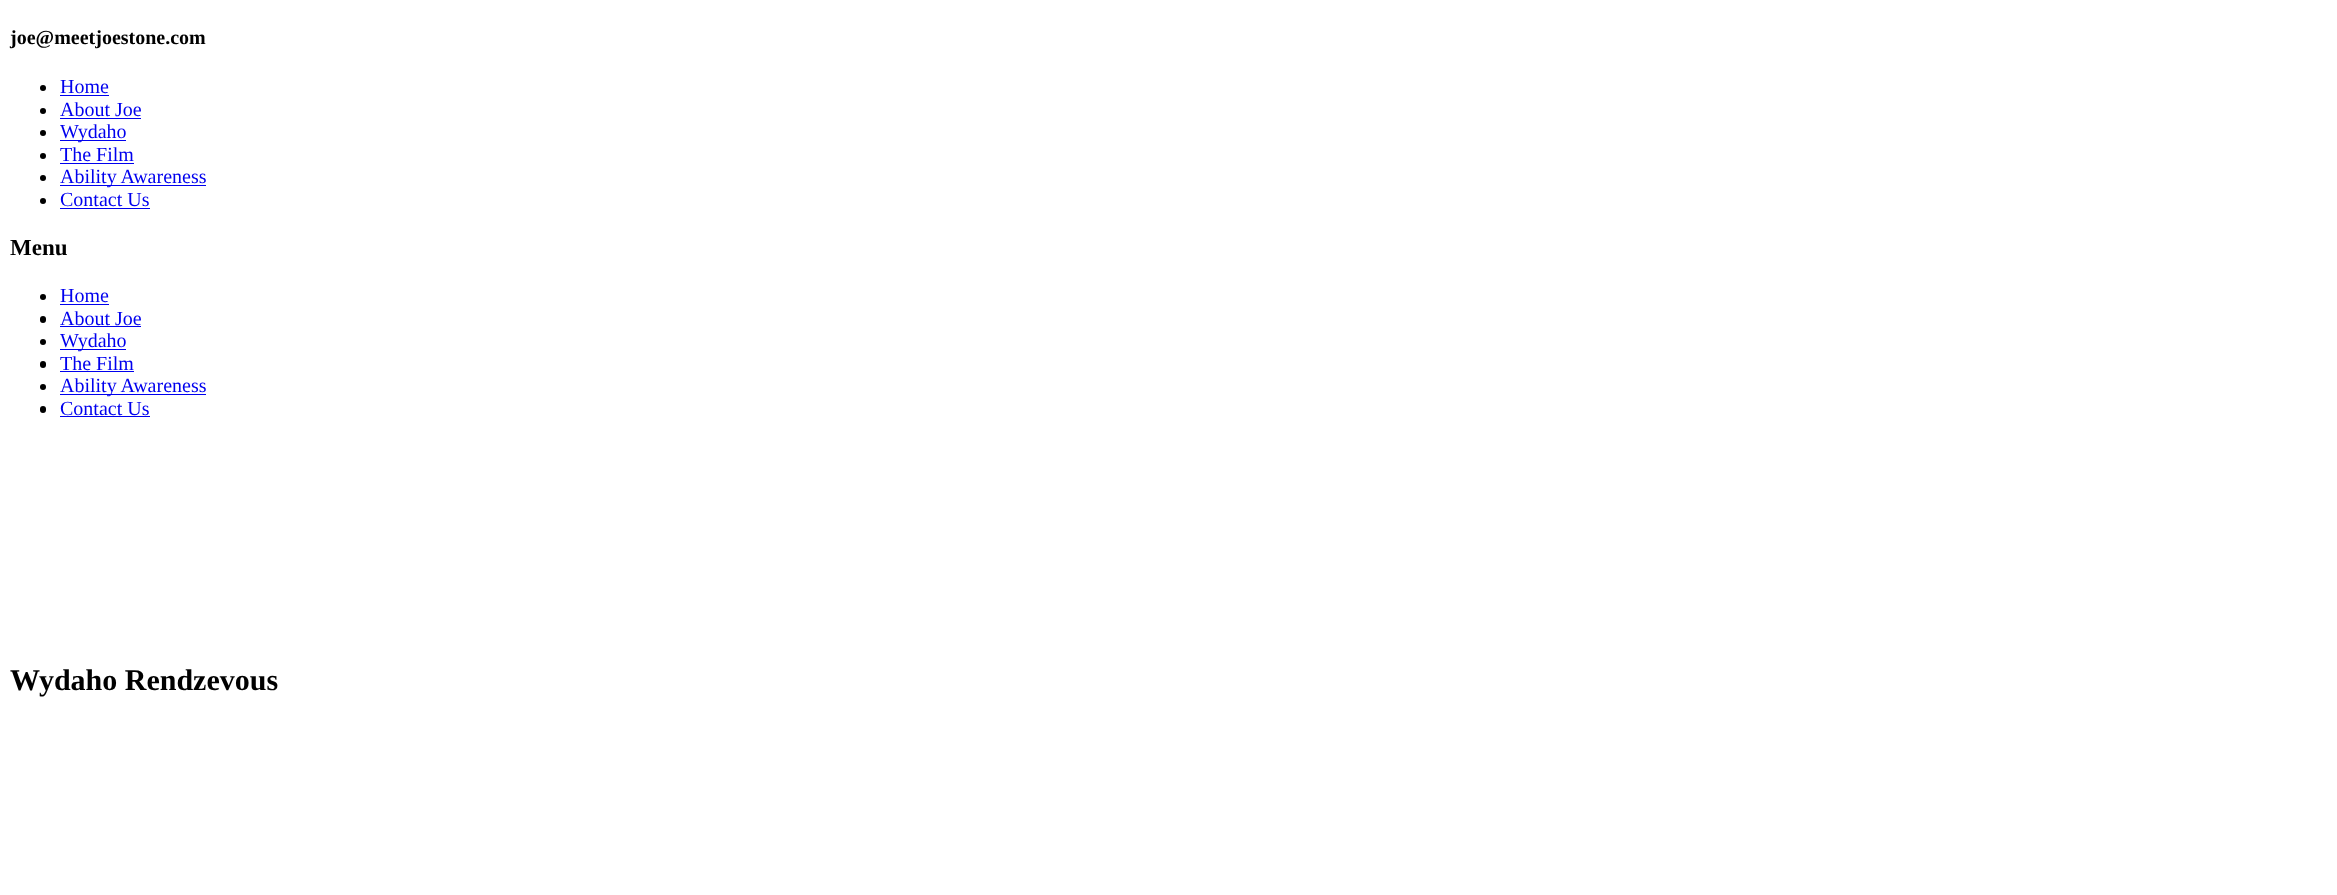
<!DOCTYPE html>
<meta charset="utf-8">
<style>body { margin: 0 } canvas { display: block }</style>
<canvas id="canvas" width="2337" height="895"></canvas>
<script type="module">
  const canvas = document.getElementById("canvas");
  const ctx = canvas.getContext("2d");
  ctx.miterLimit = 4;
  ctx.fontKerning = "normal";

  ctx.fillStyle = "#ffffff";
  ctx.fillRect(0, 0, 2337, 895);
  ctx.font = "bold 20px Liberation Serif";
  ctx.fillStyle = "#000000";
  ctx.fillText("joe@meetjoestone.com", 10, 44);
  ctx.beginPath();
  ctx.arc(43, 88, 3, 0, Math.PI * 2);
  ctx.fill();
  ctx.font = "20px Liberation Serif";
  ctx.fillStyle = "#0000ee";
  ctx.fillText("Home", 60, 93);
  ctx.fillRect(60, 95, 49, 1);
  ctx.fillStyle = "#000000";
  ctx.beginPath();
  ctx.arc(43, 111, 3, 0, Math.PI * 2);
  ctx.fill();
  ctx.fillStyle = "#0000ee";
  ctx.fillText("About Joe", 60, 116);
  ctx.fillRect(60, 118, 81, 1);
  ctx.fillStyle = "#000000";
  ctx.beginPath();
  ctx.arc(43, 133, 3, 0, Math.PI * 2);
  ctx.fill();
  ctx.fillStyle = "#0000ee";
  ctx.fillRect(60, 140, 66, 1);
  ctx.fillText("Wydaho", 60, 138);
  ctx.fillStyle = "#000000";
  ctx.beginPath();
  ctx.arc(43, 156, 3, 0, Math.PI * 2);
  ctx.fill();
  ctx.fillStyle = "#0000ee";
  ctx.fillText("The Film", 60, 161);
  ctx.fillRect(60, 163, 74, 1);
  ctx.fillStyle = "#000000";
  ctx.beginPath();
  ctx.arc(43, 178, 3, 0, Math.PI * 2);
  ctx.fill();
  ctx.fillStyle = "#0000ee";
  ctx.fillRect(60, 185, 146, 1);
  ctx.fillText("Ability Awareness", 60, 183);
  ctx.fillStyle = "#000000";
  ctx.beginPath();
  ctx.arc(43, 201, 3, 0, Math.PI * 2);
  ctx.fill();
  ctx.fillStyle = "#0000ee";
  ctx.fillText("Contact Us", 60, 206);
  ctx.fillRect(60, 208, 90, 1);
  ctx.font = "bold 23px Liberation Serif";
  ctx.fillStyle = "#000000";
  ctx.fillText("Menu", 10, 255);
  ctx.beginPath();
  ctx.arc(43, 297, 3, 0, Math.PI * 2);
  ctx.fill();
  ctx.font = "20px Liberation Serif";
  ctx.fillStyle = "#0000ee";
  ctx.fillText("Home", 60, 302);
  ctx.fillRect(60, 304, 49, 1);
  ctx.fillStyle = "#000000";
  ctx.beginPath();
  ctx.roundRect(40, 316, 6, 7, 3);
  ctx.fill();
  ctx.fillStyle = "#0000ee";
  ctx.fillText("About Joe", 60, 325);
  ctx.fillRect(60, 326, 81, 1);
  ctx.fillStyle = "#000000";
  ctx.beginPath();
  ctx.arc(43, 342, 3, 0, Math.PI * 2);
  ctx.fill();
  ctx.fillStyle = "#0000ee";
  ctx.fillRect(60, 349, 66, 1);
  ctx.fillText("Wydaho", 60, 347);
  ctx.fillStyle = "#000000";
  ctx.beginPath();
  ctx.roundRect(40, 361, 6, 7, 3);
  ctx.fill();
  ctx.fillStyle = "#0000ee";
  ctx.fillText("The Film", 60, 370);
  ctx.fillRect(60, 371, 74, 1);
  ctx.fillStyle = "#000000";
  ctx.beginPath();
  ctx.arc(43, 387, 3, 0, Math.PI * 2);
  ctx.fill();
  ctx.fillStyle = "#0000ee";
  ctx.fillRect(60, 394, 146, 1);
  ctx.fillText("Ability Awareness", 60, 392);
  ctx.fillStyle = "#000000";
  ctx.beginPath();
  ctx.roundRect(40, 406, 6, 7, 3);
  ctx.fill();
  ctx.fillStyle = "#0000ee";
  ctx.fillText("Contact Us", 60, 415);
  ctx.fillRect(60, 416, 90, 1);
  ctx.font = "bold 30px Liberation Serif";
  ctx.fillStyle = "#000000";
  ctx.fillText("Wydaho Rendzevous", 10, 690);
</script>
